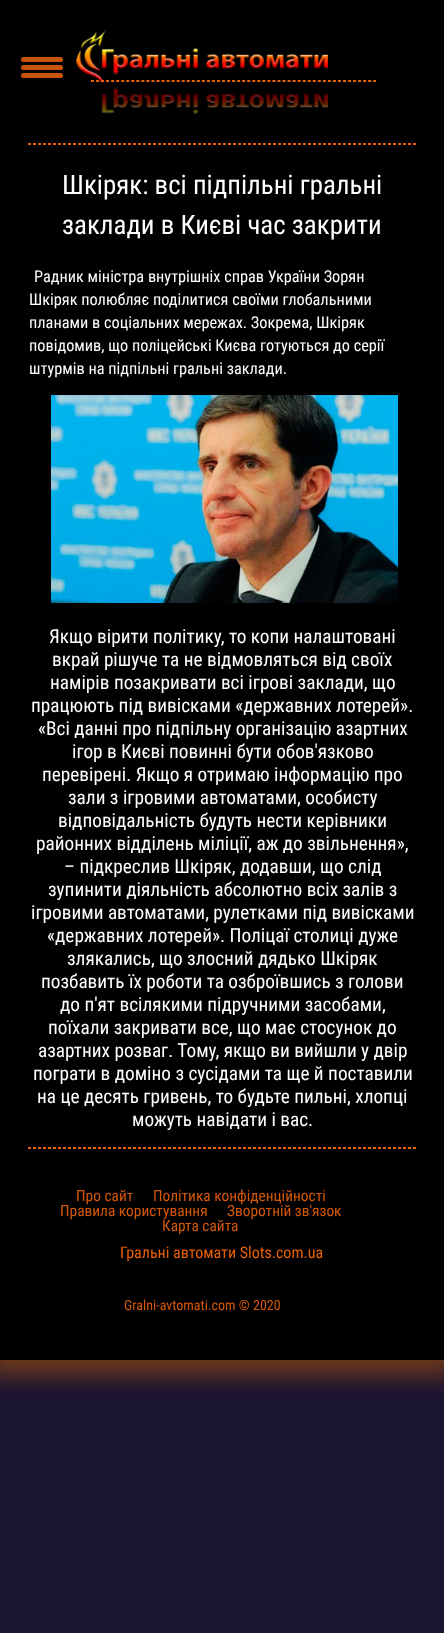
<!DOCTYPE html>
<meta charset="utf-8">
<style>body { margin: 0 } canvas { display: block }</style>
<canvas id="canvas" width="444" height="1633"></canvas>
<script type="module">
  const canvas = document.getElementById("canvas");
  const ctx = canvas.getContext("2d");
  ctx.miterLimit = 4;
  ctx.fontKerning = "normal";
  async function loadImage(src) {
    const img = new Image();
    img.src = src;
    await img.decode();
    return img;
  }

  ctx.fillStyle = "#1b1433";
  ctx.fillRect(0, 0, 444, 1633);
  ctx.fillStyle = "rgba(165, 81, 9, 0.6)";
  ctx.filter = "blur(12.5px)";
  ctx.beginPath();
  ctx.rect(-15, -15, 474, 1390);
  ctx.fill();
  ctx.filter = "none";
  ctx.fillStyle = "#000000";
  ctx.fillRect(0, 0, 444, 1360);
  ctx.fillStyle = "#c95406";
  ctx.beginPath();
  ctx.roundRect(21, 57, 42, 5, 2.5);
  ctx.fill();
  ctx.beginPath();
  ctx.roundRect(21, 65, 42, 5, 2.5);
  ctx.fill();
  ctx.beginPath();
  ctx.roundRect(21, 73, 42, 5, 2.5);
  ctx.fill();
  ctx.drawImage(await loadImage("img1.png"), 76, 29, 252, 56);
  ctx.beginPath();
  ctx.moveTo(91, 80.5);
  ctx.lineTo(376, 80.5);
  ctx.strokeStyle = "#e86107";
  ctx.setLineDash([3, 2.04]);
  ctx.stroke();
  ctx.fillStyle = "#e86107";
  ctx.fillRect(375, 80, 1, 2);
  ctx.beginPath();
  ctx.moveTo(91, 81.5);
  ctx.lineTo(376, 81.5);
  ctx.stroke();
  ctx.drawImage(await loadImage("img2.png"), 101, 87, 227, 27);
  ctx.beginPath();
  ctx.moveTo(28, 143.5);
  ctx.lineTo(416, 143.5);
  ctx.setLineDash([3, 2]);
  ctx.stroke();
  ctx.fillRect(415, 143, 1, 2);
  ctx.beginPath();
  ctx.moveTo(28, 144.5);
  ctx.lineTo(416, 144.5);
  ctx.stroke();
  ctx.font = "26.9px Roboto Condensed";
  ctx.fillStyle = "#ffffff";
  ctx.fillText("Шкіряк: всі підпільні гральні", 62, 194);
  ctx.fillText("заклади в Києві час закрити", 62, 234);
  ctx.font = "16.3px Roboto Condensed";
  ctx.fillText("Радник міністра внутрішніх справ України Зорян", 34, 282);
  ctx.fillText("Шкіряк полюбляє поділитися своїми глобальними", 29, 305);
  ctx.fillText("планами в соціальних мережах. Зокрема, Шкіряк", 29, 328);
  ctx.fillText("повідомив, що поліцейські Києва готуються до серії", 29, 351);
  ctx.fillText("штурмів на підпільні гральні заклади.", 29, 374);
  ctx.drawImage(await loadImage("img3.png"), 51, 395, 347, 208);
  ctx.font = "19.25px Roboto Condensed";
  ctx.fillText("Якщо вірити політику, то копи налаштовані", 49, 643);
  ctx.fillText("вкрай рішуче та не відмовляться від своїх", 52, 666);
  ctx.fillText("намірів позакривати всі ігрові заклади, що", 50, 689);
  ctx.fillText("працюють під вивісками «державних лотерей».", 31, 712);
  ctx.fillText("«Всі данні про підпільну організацію азартних", 38, 735);
  ctx.fillText("ігор в Києві повинні бути обов'язково", 72, 758);
  ctx.fillText("перевірені. Якщо я отримаю інформацію про", 42, 781);
  ctx.fillText("зали з ігровими автоматами, особисту", 68, 804);
  ctx.fillText("відповідальність будуть нести керівники", 58, 827);
  ctx.fillText("районних відділень міліції, аж до звільнення»,", 36, 850);
  ctx.fillText("– підкреслив Шкіряк, додавши, що слід", 64, 873);
  ctx.fillText("зупинити діяльність абсолютно всіх залів з", 48, 896);
  ctx.fillText("ігровими автоматами, рулетками під вивісками", 31, 919);
  ctx.fillText("«державних лотерей». Поліцаї столиці дуже", 47, 942);
  ctx.fillText("злякались, що злосний дядько Шкіряк", 67, 965);
  ctx.fillText("позбавить їх роботи та озброївшись з голови", 41, 988);
  ctx.fillText("до п'ят всілякими підручними засобами,", 60, 1011);
  ctx.fillText("поїхали закривати все, що має стосунок до", 48, 1034);
  ctx.fillText("азартних розваг. Тому, якщо ви вийшли у двір", 38, 1057);
  ctx.fillText("пограти в доміно з сусідами та ще й поставили", 33, 1080);
  ctx.fillText("на це десять гривень, то будьте пильні, хлопці", 37, 1103);
  ctx.fillText("можуть навідати і вас.", 132, 1126);
  ctx.beginPath();
  ctx.moveTo(28, 1147.5);
  ctx.lineTo(416, 1147.5);
  ctx.stroke();
  ctx.fillStyle = "#e86107";
  ctx.fillRect(415, 1147, 1, 2);
  ctx.beginPath();
  ctx.moveTo(28, 1148.5);
  ctx.lineTo(416, 1148.5);
  ctx.stroke();
  ctx.font = "15.4px Roboto Condensed";
  ctx.fillStyle = "#d55809";
  ctx.fillText("Про сайт", 76, 1201);
  ctx.fillText("Політика конфіденційності", 153, 1201);
  ctx.fillText("Правила користування", 60, 1216);
  ctx.fillText("Зворотній зв'язок", 227, 1216);
  ctx.fillText("Карта сайта", 162, 1231);
  ctx.font = "16px Roboto Condensed";
  ctx.fillStyle = "#e86107";
  ctx.fillText("Гральні автомати Slots.com.ua", 120, 1258);
  ctx.font = "14px Roboto Condensed";
  ctx.fillStyle = "#d55809";
  ctx.fillText("Gralni-avtomati.com © 2020", 124, 1310);
</script>
